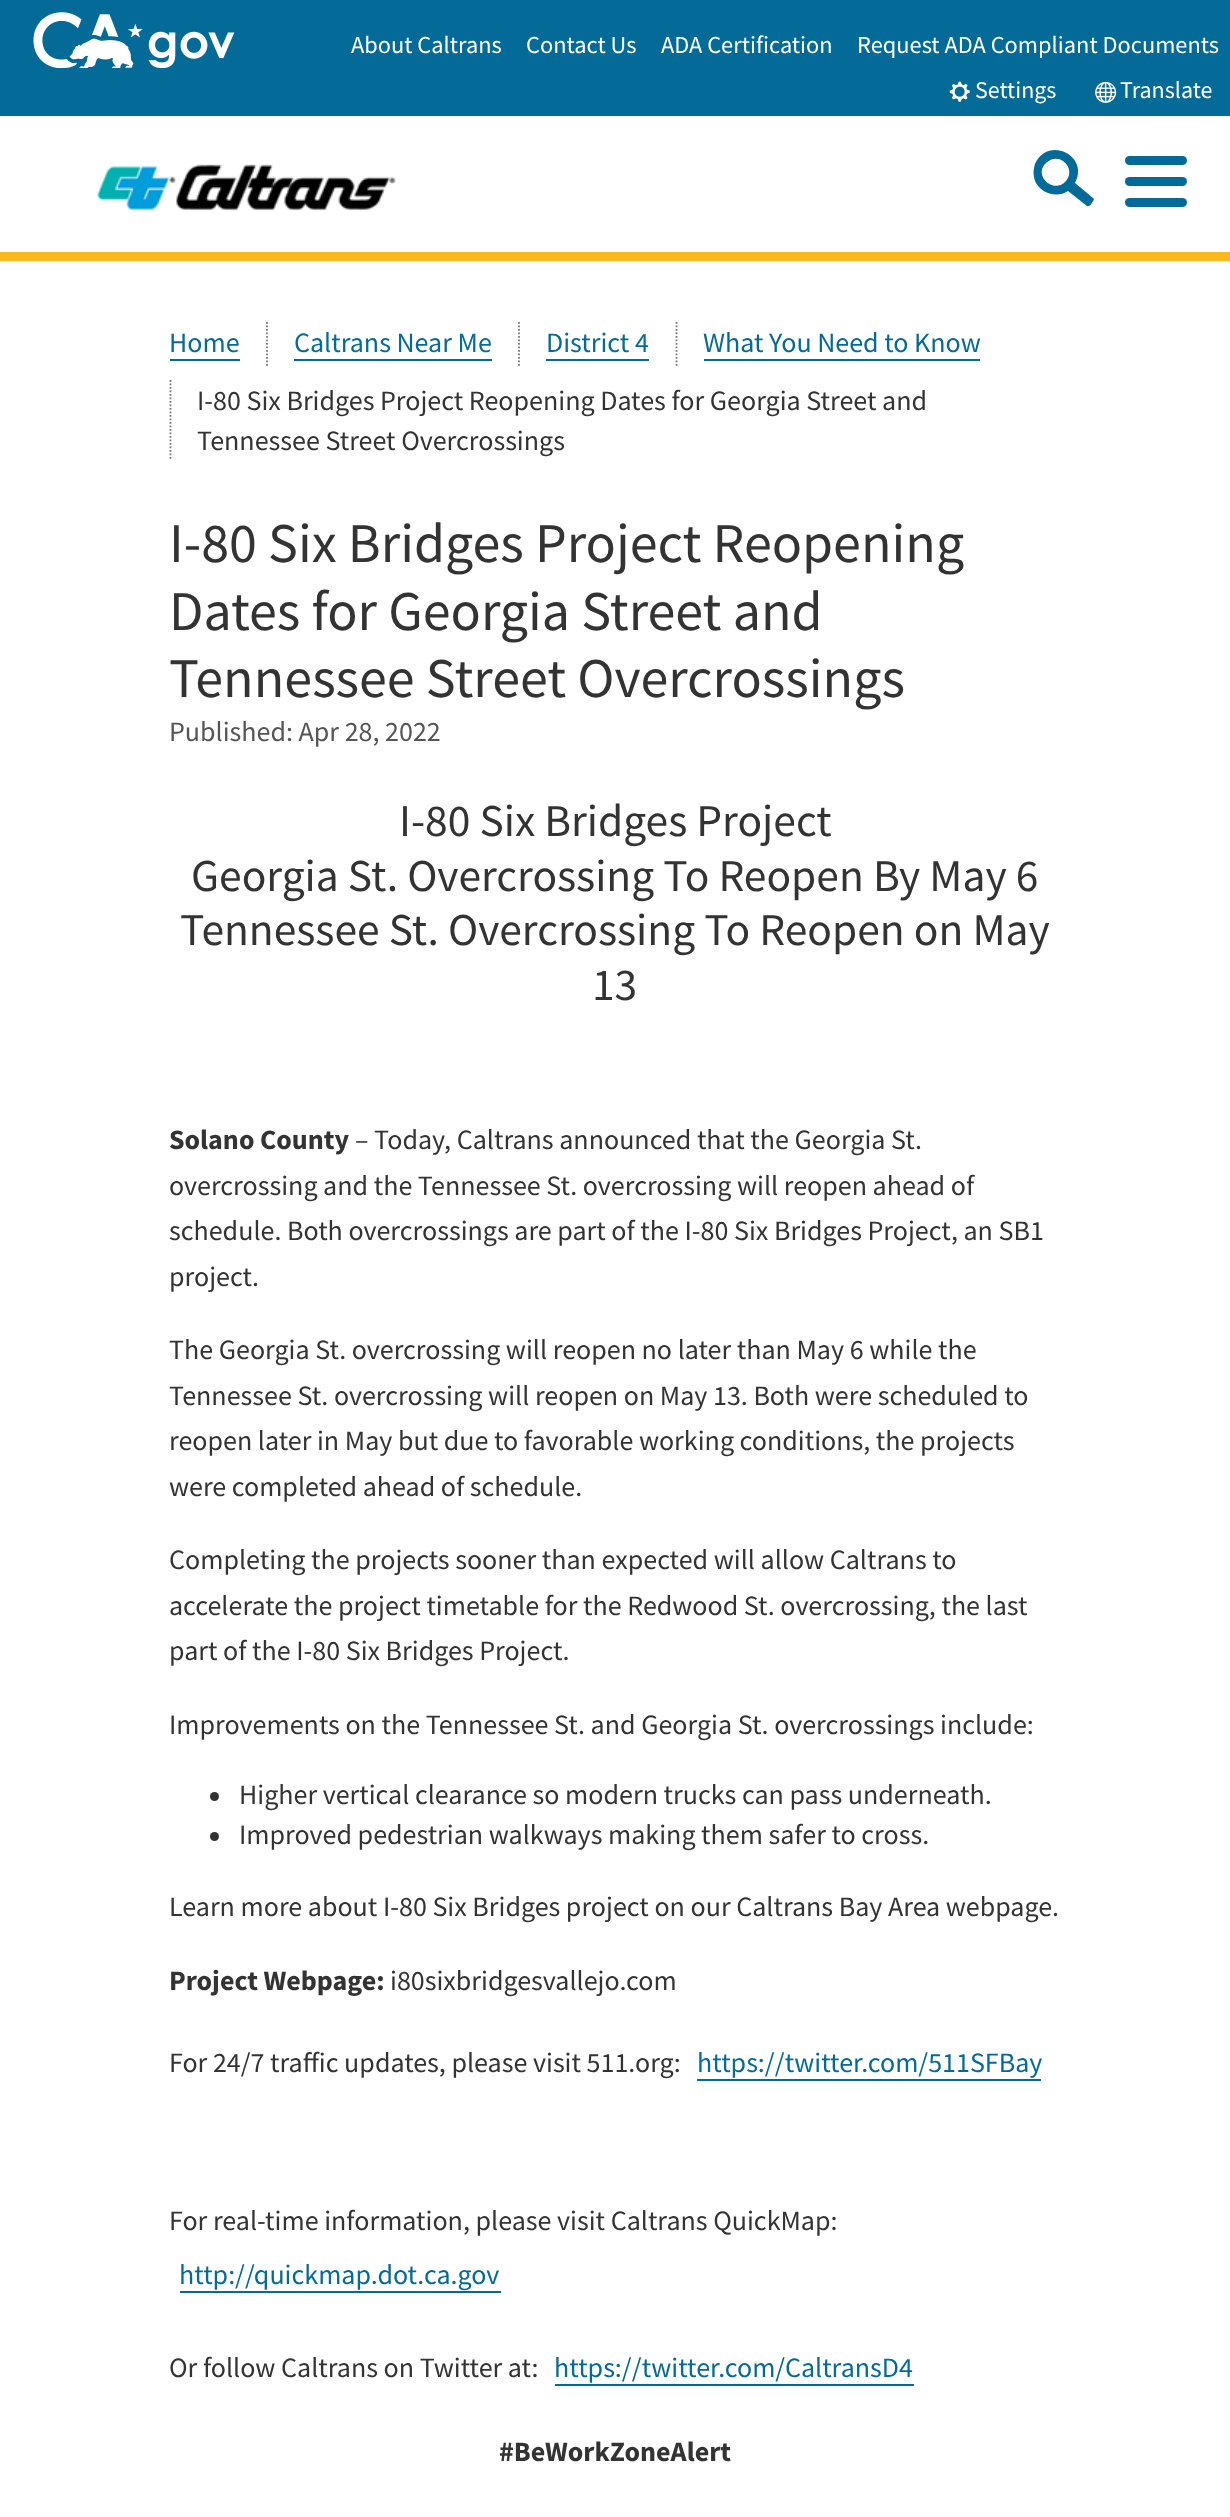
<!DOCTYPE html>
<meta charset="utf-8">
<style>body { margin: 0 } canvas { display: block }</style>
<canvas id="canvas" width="1230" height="2517"></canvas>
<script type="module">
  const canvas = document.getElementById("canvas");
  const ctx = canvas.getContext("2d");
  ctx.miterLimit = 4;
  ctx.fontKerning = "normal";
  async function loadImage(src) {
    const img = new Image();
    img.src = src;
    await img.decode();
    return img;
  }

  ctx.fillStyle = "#ffffff";
  ctx.fillRect(0, 0, 1230, 2517);
  ctx.fillStyle = "#046b99";
  ctx.fillRect(0, 0, 1230, 116);
  ctx.drawImage(await loadImage("img1.png"), 33, 12, 202, 56);
  ctx.font = "24.4px Source Sans Pro";
  ctx.fillStyle = "#ffffff";
  ctx.fillText("About Caltrans", 351, 53);
  ctx.fillText("Contact Us", 526, 53);
  ctx.fillText("ADA Certification", 661, 53);
  ctx.fillText("Request ADA Compliant Documents", 857, 53);
  ctx.drawImage(await loadImage("img2.png"), 949, 81, 21, 21);
  ctx.font = "24px Source Sans Pro";
  ctx.fillText("Settings", 975, 98);
  ctx.drawImage(await loadImage("img3.png"), 1095, 81, 22, 22);
  ctx.fillText("Translate", 1120, 98);
  ctx.drawImage(await loadImage("img4.png"), 97, 164, 299, 47);
  ctx.fillStyle = "#046b99";
  ctx.beginPath();
  ctx.moveTo(1093, 198);
  ctx.lineTo(1075, 183);
  ctx.bezierCurveTo(1090, 156, 1048, 135, 1035, 164);
  ctx.bezierCurveTo(1033, 170, 1033, 177, 1036, 183);
  ctx.bezierCurveTo(1042, 194, 1058, 198, 1068, 191);
  ctx.lineTo(1087, 206);
  ctx.bezierCurveTo(1090, 207, 1091, 204, 1092, 203);
  ctx.bezierCurveTo(1093, 201, 1095, 199, 1093, 198);
  ctx.closePath();
  ctx.moveTo(1065, 182);
  ctx.bezierCurveTo(1053, 194, 1033, 175, 1046, 163);
  ctx.bezierCurveTo(1059, 150, 1078, 169, 1065, 182);
  ctx.closePath();
  ctx.fill();
  ctx.beginPath();
  ctx.roundRect(1125, 156, 62, 9, 4.5);
  ctx.fill();
  ctx.beginPath();
  ctx.roundRect(1125, 177, 62, 9, 4.5);
  ctx.fill();
  ctx.beginPath();
  ctx.roundRect(1125, 198, 62, 9, 4.5);
  ctx.fill();
  ctx.fillStyle = "#fdb81e";
  ctx.fillRect(0, 252, 1230, 9);
  ctx.font = "28px Source Sans Pro";
  ctx.fillStyle = "#046b99";
  ctx.fillText("Home", 169, 352);
  ctx.fillRect(170, 359, 70, 2);
  ctx.beginPath();
  ctx.moveTo(267, 322);
  ctx.lineTo(267, 366);
  ctx.strokeStyle = "#777777";
  ctx.lineWidth = 1.8;
  ctx.setLineDash([1.75, 1.75]);
  ctx.stroke();
  ctx.fillText("Caltrans Near Me", 294, 352);
  ctx.fillRect(294, 359, 198, 2);
  ctx.beginPath();
  ctx.moveTo(519, 322);
  ctx.lineTo(519, 366);
  ctx.stroke();
  ctx.fillText("District 4", 546, 352);
  ctx.fillRect(546, 359, 103, 2);
  ctx.beginPath();
  ctx.moveTo(676.5, 322);
  ctx.lineTo(676.5, 366);
  ctx.stroke();
  ctx.fillText("What You Need to Know", 703, 352);
  ctx.fillRect(704, 359, 276, 2);
  ctx.beginPath();
  ctx.moveTo(170.5, 380);
  ctx.lineTo(170.5, 460);
  ctx.stroke();
  ctx.fillStyle = "#333333";
  ctx.fillText("I-80 Six Bridges Project Reopening Dates for Georgia Street and", 197, 410);
  ctx.fillText("Tennessee Street Overcrossings", 197, 450);
  ctx.font = "56px Source Sans Pro";
  ctx.fillText("I-80 Six Bridges Project Reopening", 169, 562);
  ctx.fillText("Dates for Georgia Street and", 169, 630);
  ctx.fillText("Tennessee Street Overcrossings", 169, 697);
  ctx.font = "28px Source Sans Pro";
  ctx.fillStyle = "#555555";
  ctx.fillText("Published: Apr 28, 2022", 169, 741);
  ctx.font = "45.5px Source Sans Pro";
  ctx.fillStyle = "#333333";
  ctx.fillText("I-80 Six Bridges Project", 399, 836);
  ctx.fillText("Georgia St. Overcrossing To Reopen By May 6", 191, 891);
  ctx.fillText("Tennessee St. Overcrossing To Reopen on May", 180, 945);
  ctx.fillText("13", 592, 1000);
  ctx.font = "bold 28px Source Sans Pro";
  ctx.fillText("Solano County", 169, 1149);
  ctx.font = "28px Source Sans Pro";
  ctx.fillText("– Today, Caltrans announced that the Georgia St.", 355, 1149);
  ctx.fillText("overcrossing and the Tennessee St. overcrossing will reopen ahead of", 169, 1195);
  ctx.fillText("schedule. Both overcrossings are part of the I-80 Six Bridges Project, an SB1", 169, 1240);
  ctx.fillText("project.", 169, 1286);
  ctx.fillText("The Georgia St. overcrossing will reopen no later than May 6 while the", 169, 1359);
  ctx.fillText("Tennessee St. overcrossing will reopen on May 13. Both were scheduled to", 169, 1405);
  ctx.fillText("reopen later in May but due to favorable working conditions, the projects", 169, 1450);
  ctx.fillText("were completed ahead of schedule.", 169, 1496);
  ctx.fillText("Completing the projects sooner than expected will allow Caltrans to", 169, 1569);
  ctx.fillText("accelerate the project timetable for the Redwood St. overcrossing, the last", 169, 1615);
  ctx.fillText("part of the I-80 Six Bridges Project.", 169, 1660);
  ctx.fillText("Improvements on the Tennessee St. and Georgia St. overcrossings include:", 169, 1734);
  ctx.beginPath();
  ctx.arc(214.5, 1796.5, 4.5, 0, Math.PI * 2);
  ctx.fill();
  ctx.fillText("Higher vertical clearance so modern trucks can pass underneath.", 239, 1804);
  ctx.beginPath();
  ctx.arc(214.5, 1836.5, 4.5, 0, Math.PI * 2);
  ctx.fill();
  ctx.fillText("Improved pedestrian walkways making them safer to cross.", 239, 1844);
  ctx.fillText("Learn more about I-80 Six Bridges project on our Caltrans Bay Area webpage.", 169, 1916);
  ctx.font = "bold 28px Source Sans Pro";
  ctx.fillText("Project Webpage:", 169, 1990);
  ctx.font = "28px Source Sans Pro";
  ctx.fillText("i80sixbridgesvallejo.com", 390, 1990);
  ctx.fillText("For 24/7 traffic updates, please visit 511.org:", 169, 2072);
  ctx.fillStyle = "#046b99";
  ctx.fillText("https://twitter.com/511SFBay", 697, 2072);
  ctx.fillRect(697, 2079, 344, 2);
  ctx.fillStyle = "#333333";
  ctx.fillText("For real-time information, please visit Caltrans QuickMap:", 169, 2230);
  ctx.fillStyle = "#046b99";
  ctx.fillText("http://quickmap.dot.ca.gov", 179, 2284);
  ctx.fillRect(180, 2291, 321, 2);
  ctx.fillStyle = "#333333";
  ctx.fillText("Or follow Caltrans on Twitter at:", 169, 2377);
  ctx.fillStyle = "#046b99";
  ctx.fillText("https://twitter.com/CaltransD4", 554, 2377);
  ctx.fillRect(555, 2384, 359, 2);
  ctx.font = "bold 28px Source Sans Pro";
  ctx.fillStyle = "#333333";
  ctx.fillText("#BeWorkZoneAlert", 499, 2461);
</script>
